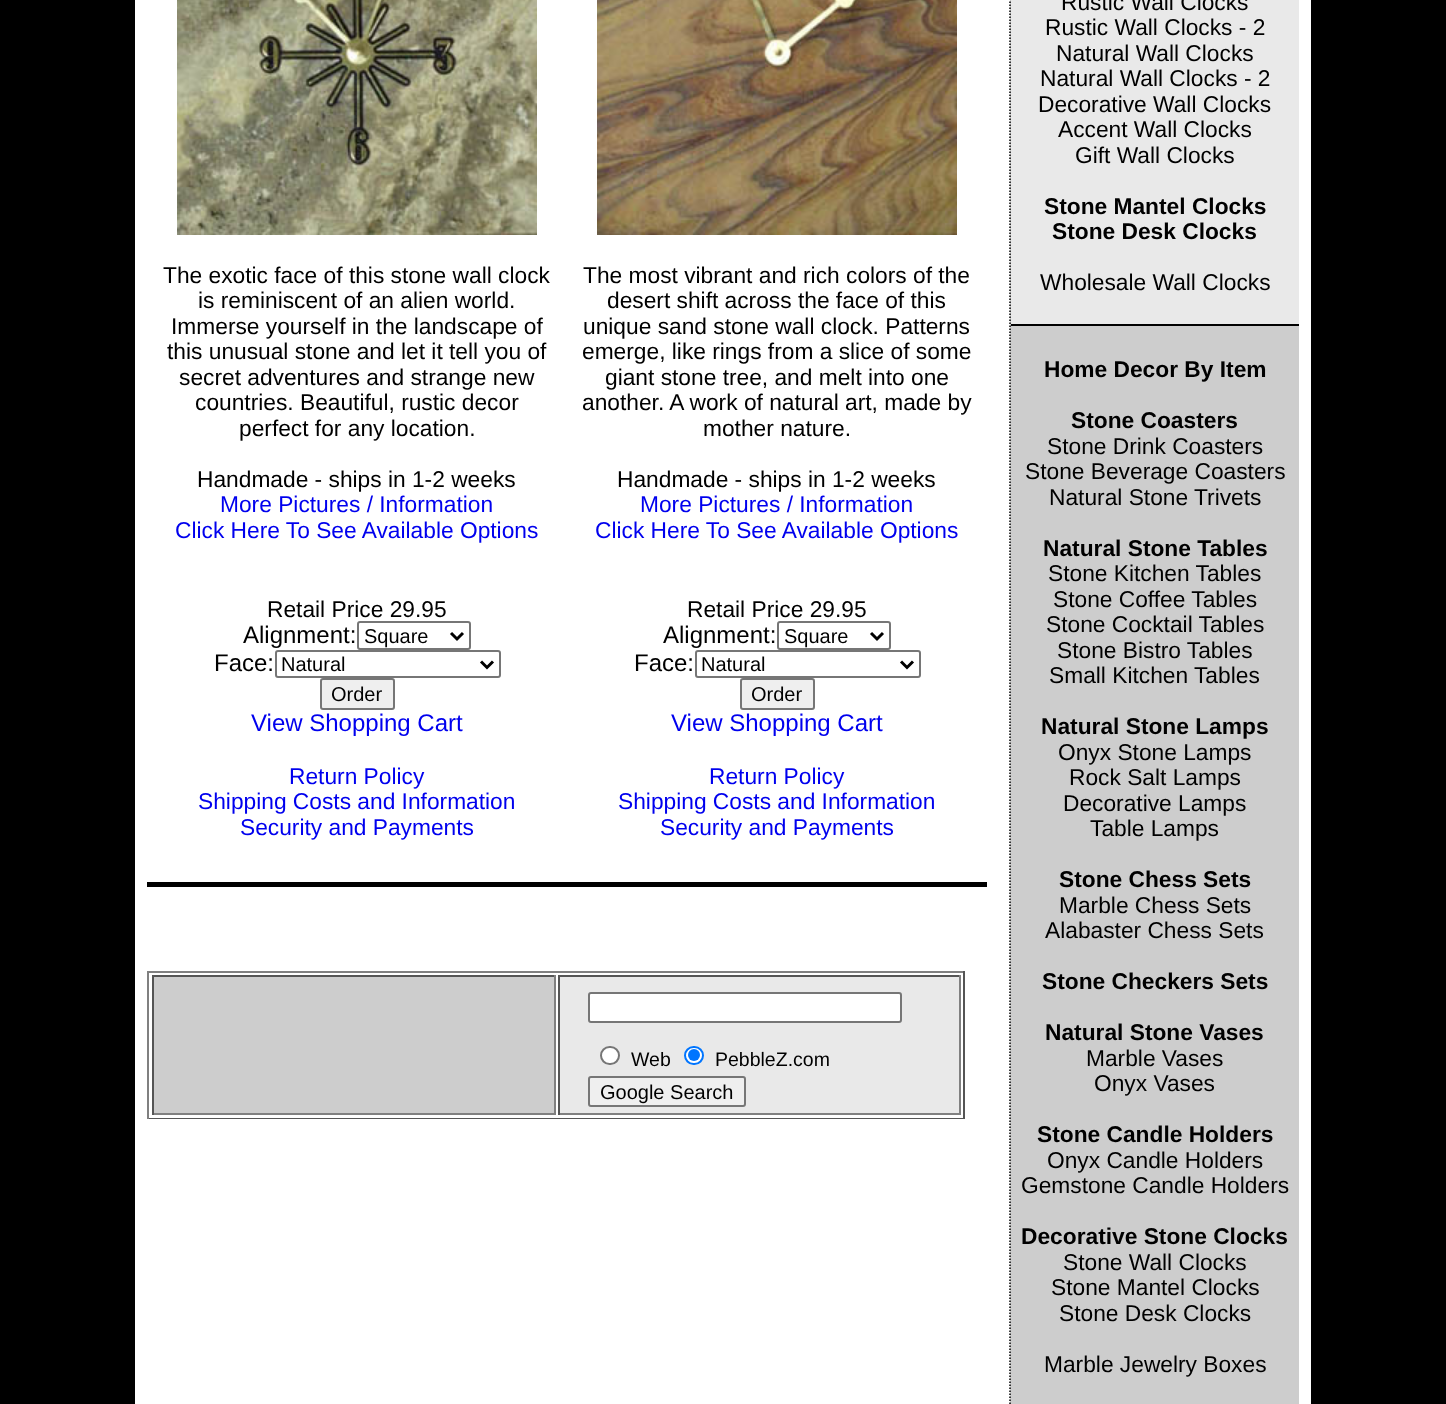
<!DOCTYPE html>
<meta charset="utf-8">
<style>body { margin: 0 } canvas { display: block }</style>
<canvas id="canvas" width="1446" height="1404"></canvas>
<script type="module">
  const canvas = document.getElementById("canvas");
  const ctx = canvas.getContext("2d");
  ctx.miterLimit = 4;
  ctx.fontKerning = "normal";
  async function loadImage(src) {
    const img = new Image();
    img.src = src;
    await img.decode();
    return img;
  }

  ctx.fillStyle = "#000000";
  ctx.fillRect(0, 0, 1446, 1404);
  ctx.fillStyle = "#ffffff";
  ctx.fillRect(135, 0, 1176, 1404);
  ctx.fillStyle = "#000000";
  ctx.fillRect(147, 882, 840, 5);
  ctx.drawImage(await loadImage("img1.png"), 177, 0, 360, 235);
  ctx.font = "22.75px Liberation Sans";
  ctx.fillText("The exotic face of this stone wall clock", 163, 283);
  ctx.fillText("is reminiscent of an alien world.", 198, 308);
  ctx.fillText("Immerse yourself in the landscape of", 171, 334);
  ctx.fillText("this unusual stone and let it tell you of", 167, 359);
  ctx.fillText("secret adventures and strange new", 179, 385);
  ctx.fillText("countries. Beautiful, rustic decor", 195, 410);
  ctx.fillText("perfect for any location.", 239, 436);
  ctx.fillText("Handmade - ships in 1-2 weeks", 197, 487);
  ctx.fillStyle = "#0000ee";
  ctx.fillText("More Pictures / Information", 220, 512);
  ctx.fillText("Click Here To See Available Options", 175, 538);
  ctx.fillStyle = "#000000";
  ctx.fillText("Retail Price 29.95", 267, 617);
  ctx.font = "24px Liberation Sans";
  ctx.fillText("Alignment:", 243, 643);
  ctx.beginPath();
  ctx.roundRect(358, 622, 112, 27, 2);
  ctx.strokeStyle = "#767676";
  ctx.lineWidth = 2;
  ctx.stroke();
  ctx.beginPath();
  ctx.moveTo(451, 633);
  ctx.lineTo(457, 639);
  ctx.lineTo(463, 633);
  ctx.strokeStyle = "#000000";
  ctx.lineWidth = 3;
  ctx.stroke();
  ctx.font = "20px Liberation Sans";
  ctx.fillText("Square", 364, 643);
  ctx.font = "24px Liberation Sans";
  ctx.fillText("Face:", 214, 671);
  ctx.beginPath();
  ctx.roundRect(276, 651, 224, 26, 2);
  ctx.strokeStyle = "#767676";
  ctx.lineWidth = 2;
  ctx.stroke();
  ctx.beginPath();
  ctx.moveTo(481, 661.5);
  ctx.lineTo(487, 667.5);
  ctx.lineTo(493, 661.5);
  ctx.strokeStyle = "#000000";
  ctx.lineWidth = 3;
  ctx.stroke();
  ctx.font = "20px Liberation Sans";
  ctx.fillText("Natural", 281, 671);
  ctx.fillStyle = "#efefef";
  ctx.beginPath();
  ctx.roundRect(321, 679, 73, 30, 2);
  ctx.fill();
  ctx.strokeStyle = "#767676";
  ctx.lineWidth = 2;
  ctx.stroke();
  ctx.fillStyle = "#000000";
  ctx.fillText("Order", 331, 701);
  ctx.font = "24px Liberation Sans";
  ctx.fillStyle = "#0000ee";
  ctx.fillText("View Shopping Cart", 251, 731);
  ctx.font = "22.75px Liberation Sans";
  ctx.fillText("Return Policy", 289, 784);
  ctx.fillText("Shipping Costs and Information", 198, 809);
  ctx.fillText("Security and Payments", 240, 835);
  ctx.drawImage(await loadImage("img2.png"), 597, 0, 360, 235);
  ctx.fillStyle = "#000000";
  ctx.fillText("The most vibrant and rich colors of the", 583, 283);
  ctx.fillText("desert shift across the face of this", 607, 308);
  ctx.fillText("unique sand stone wall clock. Patterns", 583, 334);
  ctx.fillText("emerge, like rings from a slice of some", 582, 359);
  ctx.fillText("giant stone tree, and melt into one", 605, 385);
  ctx.fillText("another. A work of natural art, made by", 582, 410);
  ctx.fillText("mother nature.", 703, 436);
  ctx.fillText("Handmade - ships in 1-2 weeks", 617, 487);
  ctx.fillStyle = "#0000ee";
  ctx.fillText("More Pictures / Information", 640, 512);
  ctx.fillText("Click Here To See Available Options", 595, 538);
  ctx.fillStyle = "#000000";
  ctx.fillText("Retail Price 29.95", 687, 617);
  ctx.font = "24px Liberation Sans";
  ctx.fillText("Alignment:", 663, 643);
  ctx.beginPath();
  ctx.roundRect(778, 622, 112, 27, 2);
  ctx.stroke();
  ctx.beginPath();
  ctx.moveTo(871, 633);
  ctx.lineTo(877, 639);
  ctx.lineTo(883, 633);
  ctx.strokeStyle = "#000000";
  ctx.lineWidth = 3;
  ctx.stroke();
  ctx.font = "20px Liberation Sans";
  ctx.fillText("Square", 784, 643);
  ctx.font = "24px Liberation Sans";
  ctx.fillText("Face:", 634, 671);
  ctx.beginPath();
  ctx.roundRect(696, 651, 224, 26, 2);
  ctx.strokeStyle = "#767676";
  ctx.lineWidth = 2;
  ctx.stroke();
  ctx.beginPath();
  ctx.moveTo(901, 661.5);
  ctx.lineTo(907, 667.5);
  ctx.lineTo(913, 661.5);
  ctx.strokeStyle = "#000000";
  ctx.lineWidth = 3;
  ctx.stroke();
  ctx.font = "20px Liberation Sans";
  ctx.fillText("Natural", 701, 671);
  ctx.fillStyle = "#efefef";
  ctx.beginPath();
  ctx.roundRect(741, 679, 73, 30, 2);
  ctx.fill();
  ctx.strokeStyle = "#767676";
  ctx.lineWidth = 2;
  ctx.stroke();
  ctx.fillStyle = "#000000";
  ctx.fillText("Order", 751, 701);
  ctx.font = "24px Liberation Sans";
  ctx.fillStyle = "#0000ee";
  ctx.fillText("View Shopping Cart", 671, 731);
  ctx.font = "22.75px Liberation Sans";
  ctx.fillText("Return Policy", 709, 784);
  ctx.fillText("Shipping Costs and Information", 618, 809);
  ctx.fillText("Security and Payments", 660, 835);
  ctx.fillStyle = "#808080";
  ctx.fillRect(147, 971, 818, 2);
  ctx.fillStyle = "#555555";
  ctx.fillRect(963, 971, 2, 148);
  ctx.fillRect(147, 1118, 818, 1);
  ctx.fillStyle = "#808080";
  ctx.fillRect(147, 971, 2, 148);
  ctx.fillStyle = "#cdcdcd";
  ctx.fillRect(154, 977, 400, 136);
  ctx.fillStyle = "#555555";
  ctx.fillRect(152, 975, 403, 2);
  ctx.fillStyle = "#808080";
  ctx.fillRect(554, 975, 2, 140);
  ctx.fillRect(152, 1113, 403, 2);
  ctx.fillStyle = "#555555";
  ctx.fillRect(152, 975, 2, 140);
  ctx.fillStyle = "#e9e9e9";
  ctx.fillRect(560, 977, 399, 136);
  ctx.fillStyle = "#555555";
  ctx.fillRect(558, 975, 402, 2);
  ctx.fillStyle = "#808080";
  ctx.fillRect(959, 975, 2, 140);
  ctx.fillRect(558, 1113, 402, 2);
  ctx.fillStyle = "#555555";
  ctx.fillRect(558, 975, 2, 140);
  ctx.fillStyle = "#ffffff";
  ctx.beginPath();
  ctx.roundRect(589, 993, 312, 29, 2);
  ctx.fill();
  ctx.stroke();
  ctx.beginPath();
  ctx.roundRect(601, 1047, 18, 17, 8.5);
  ctx.fill();
  ctx.stroke();
  ctx.font = "19.5px Liberation Sans";
  ctx.fillStyle = "#000000";
  ctx.fillText("Web", 631, 1066);
  ctx.fillStyle = "#ffffff";
  ctx.beginPath();
  ctx.roundRect(685, 1047, 18, 17, 8.5);
  ctx.fill();
  ctx.strokeStyle = "#0075ff";
  ctx.stroke();
  ctx.fillStyle = "#0075ff";
  ctx.beginPath();
  ctx.arc(694, 1055, 6, 0, Math.PI * 2);
  ctx.fill();
  ctx.fillStyle = "#000000";
  ctx.fillText("PebbleZ.com", 715, 1066);
  ctx.fillStyle = "#efefef";
  ctx.beginPath();
  ctx.roundRect(589, 1077, 156, 29, 2);
  ctx.fill();
  ctx.strokeStyle = "#767676";
  ctx.stroke();
  ctx.font = "20px Liberation Sans";
  ctx.fillStyle = "#000000";
  ctx.fillText("Google Search", 600, 1099);
  ctx.fillStyle = "#cdcdcd";
  ctx.fillRect(1010, 0, 289, 1404);
  ctx.beginPath();
  ctx.moveTo(1010, -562.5);
  ctx.lineTo(1010, 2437.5);
  ctx.strokeStyle = "#000000";
  ctx.lineWidth = 1.5;
  ctx.setLineDash([1.5, 1.5]);
  ctx.stroke();
  ctx.fillStyle = "#e9e9e9";
  ctx.fillRect(1011, 0, 288, 324);
  ctx.fillStyle = "#000000";
  ctx.fillRect(1011, 324, 288, 2);
  ctx.font = "22.75px Liberation Sans";
  ctx.fillText("Rustic Wall Clocks", 1061, 10);
  ctx.fillText("Rustic Wall Clocks - 2", 1045, 35);
  ctx.fillText("Natural Wall Clocks", 1056, 61);
  ctx.fillText("Natural Wall Clocks - 2", 1040, 86);
  ctx.fillText("Decorative Wall Clocks", 1038, 112);
  ctx.fillText("Accent Wall Clocks", 1058, 137);
  ctx.fillText("Gift Wall Clocks", 1075, 163);
  ctx.font = "bold 22.75px Liberation Sans";
  ctx.fillText("Stone Mantel Clocks", 1044, 214);
  ctx.fillText("Stone Desk Clocks", 1052, 239);
  ctx.font = "22.75px Liberation Sans";
  ctx.fillText("Wholesale Wall Clocks", 1040, 290);
  ctx.font = "bold 22.75px Liberation Sans";
  ctx.fillText("Home Decor By Item", 1044, 377);
  ctx.fillText("Stone Coasters", 1071, 428);
  ctx.font = "22.75px Liberation Sans";
  ctx.fillText("Stone Drink Coasters", 1047, 454);
  ctx.fillText("Stone Beverage Coasters", 1025, 479);
  ctx.fillText("Natural Stone Trivets", 1049, 505);
  ctx.font = "bold 22.75px Liberation Sans";
  ctx.fillText("Natural Stone Tables", 1043, 556);
  ctx.font = "22.75px Liberation Sans";
  ctx.fillText("Stone Kitchen Tables", 1048, 581);
  ctx.fillText("Stone Coffee Tables", 1053, 607);
  ctx.fillText("Stone Cocktail Tables", 1046, 632);
  ctx.fillText("Stone Bistro Tables", 1057, 658);
  ctx.fillText("Small Kitchen Tables", 1049, 683);
  ctx.font = "bold 22.75px Liberation Sans";
  ctx.fillText("Natural Stone Lamps", 1041, 734);
  ctx.font = "22.75px Liberation Sans";
  ctx.fillText("Onyx Stone Lamps", 1058, 760);
  ctx.fillText("Rock Salt Lamps", 1069, 785);
  ctx.fillText("Decorative Lamps", 1063, 811);
  ctx.fillText("Table Lamps", 1090, 836);
  ctx.font = "bold 22.75px Liberation Sans";
  ctx.fillText("Stone Chess Sets", 1059, 887);
  ctx.font = "22.75px Liberation Sans";
  ctx.fillText("Marble Chess Sets", 1059, 913);
  ctx.fillText("Alabaster Chess Sets", 1045, 938);
  ctx.font = "bold 22.75px Liberation Sans";
  ctx.fillText("Stone Checkers Sets", 1042, 989);
  ctx.fillText("Natural Stone Vases", 1045, 1040);
  ctx.font = "22.75px Liberation Sans";
  ctx.fillText("Marble Vases", 1086, 1066);
  ctx.fillText("Onyx Vases", 1094, 1091);
  ctx.font = "bold 22.75px Liberation Sans";
  ctx.fillText("Stone Candle Holders", 1037, 1142);
  ctx.font = "22.75px Liberation Sans";
  ctx.fillText("Onyx Candle Holders", 1047, 1168);
  ctx.fillText("Gemstone Candle Holders", 1021, 1193);
  ctx.font = "bold 22.75px Liberation Sans";
  ctx.fillText("Decorative Stone Clocks", 1021, 1244);
  ctx.font = "22.75px Liberation Sans";
  ctx.fillText("Stone Wall Clocks", 1063, 1270);
  ctx.fillText("Stone Mantel Clocks", 1051, 1295);
  ctx.fillText("Stone Desk Clocks", 1059, 1321);
  ctx.fillText("Marble Jewelry Boxes", 1044, 1372);
</script>
